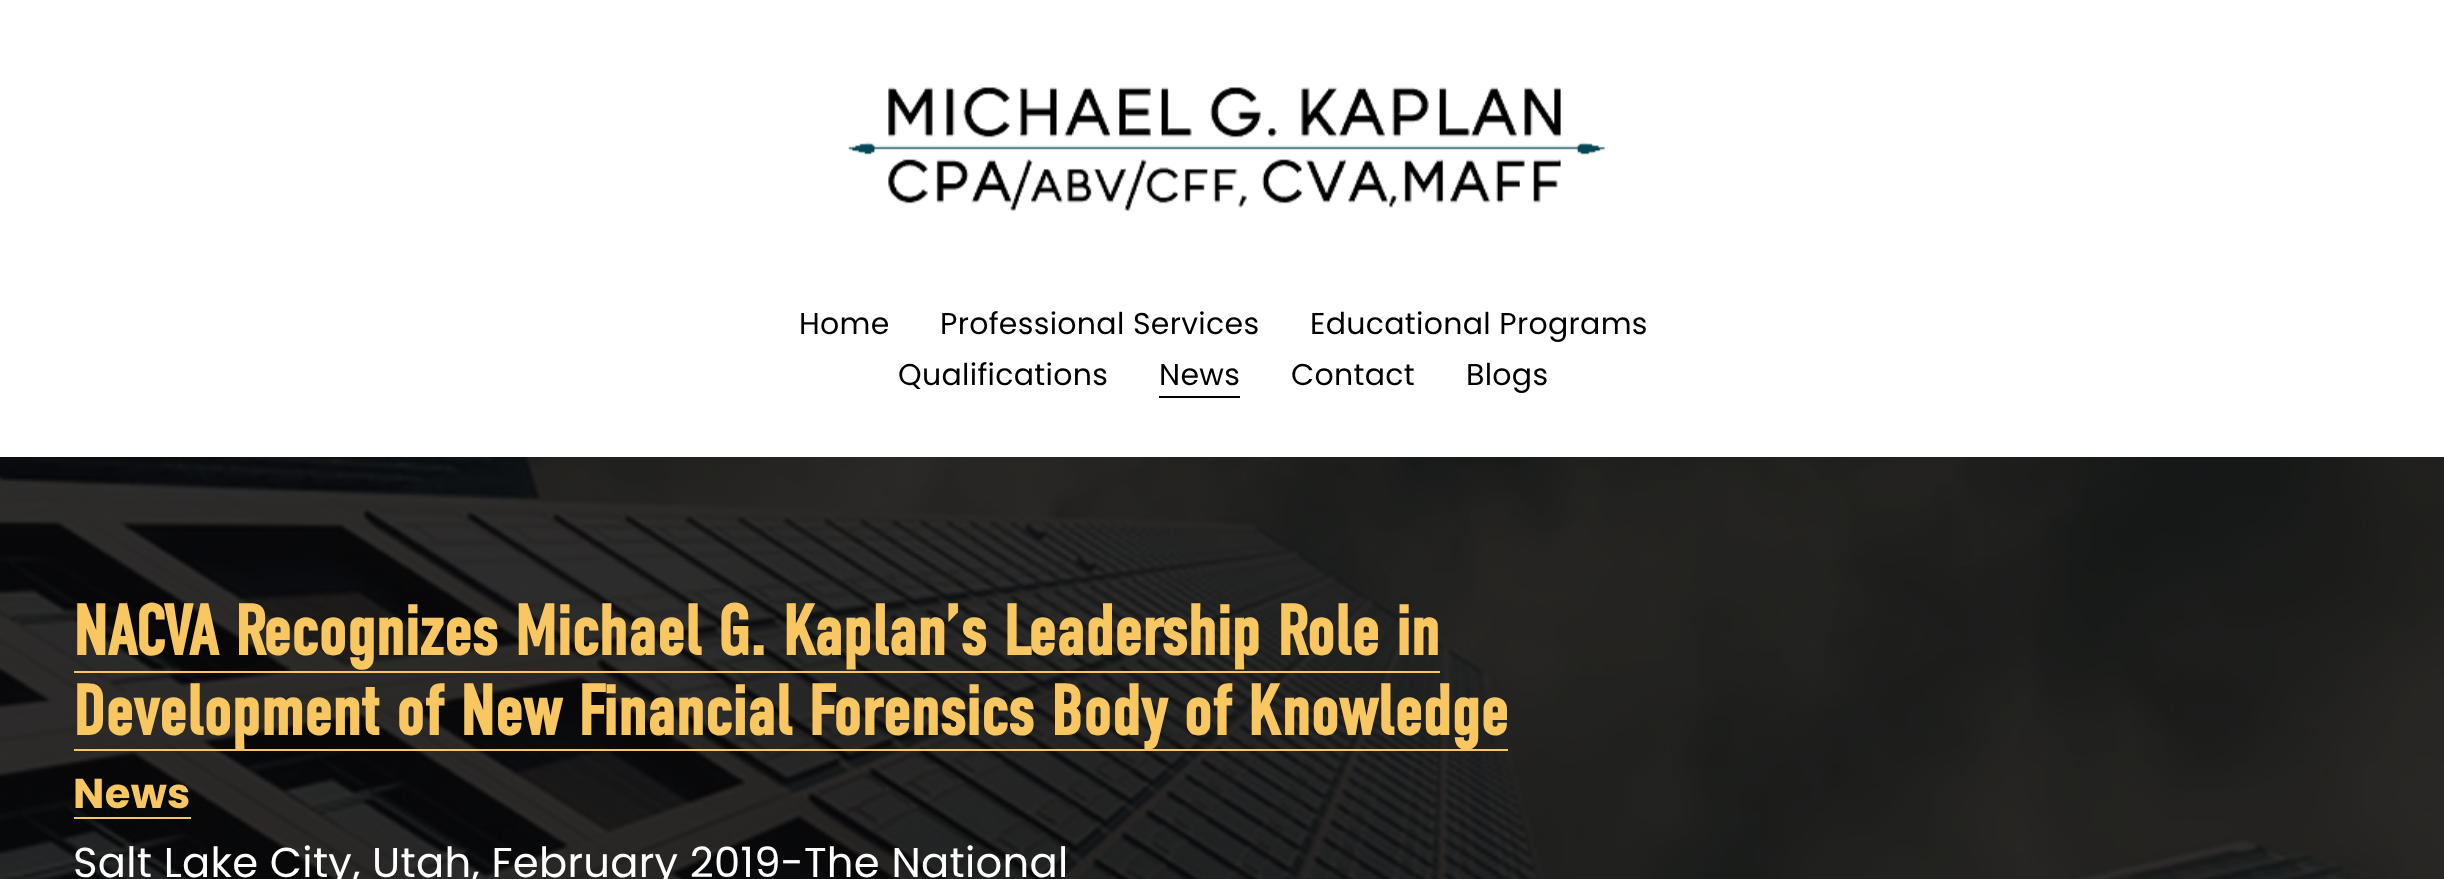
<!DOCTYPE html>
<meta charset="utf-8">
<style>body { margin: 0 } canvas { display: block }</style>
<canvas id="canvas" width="2444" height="879"></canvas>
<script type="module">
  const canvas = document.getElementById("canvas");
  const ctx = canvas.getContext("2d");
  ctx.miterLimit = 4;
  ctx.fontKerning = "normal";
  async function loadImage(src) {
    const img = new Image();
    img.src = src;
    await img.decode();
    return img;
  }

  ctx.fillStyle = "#ffffff";
  ctx.fillRect(0, 0, 2444, 879);
  ctx.drawImage(await loadImage("img1.png"), 847, 87, 758, 125);
  ctx.letterSpacing = "0.3px";
  ctx.font = "30px Poppins";
  ctx.fillStyle = "#000000";
  ctx.fillText("Home", 799, 334);
  ctx.fillText("Professional Services", 940, 334);
  ctx.fillText("Educational Programs", 1310, 334);
  ctx.fillText("Qualifications", 898, 385);
  ctx.fillRect(1159, 396, 81, 2);
  ctx.fillText("News", 1159, 385);
  ctx.fillText("Contact", 1291, 385);
  ctx.fillText("Blogs", 1466, 385);
  ctx.drawImage(await loadImage("img2.png"), 0, 457, 2444, 422);
  ctx.letterSpacing = "0px";
  ctx.font = "bold 71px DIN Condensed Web";
  ctx.fillStyle = "#f8c761";
  ctx.fillText("NACVA Recognizes Michael G. Kaplan’s Leadership Role in", 73, 655);
  ctx.fillRect(74, 671, 1366, 2);
  ctx.fillRect(74, 749, 1434, 2);
  ctx.fillText("Development of New Financial Forensics Body of Knowledge", 73, 735);
  ctx.letterSpacing = "0.3px";
  ctx.font = "bold 41.7px Poppins";
  ctx.fillText("News", 73, 808);
  ctx.fillRect(74, 817, 117, 2);
  ctx.font = "41.7px Poppins";
  ctx.fillStyle = "#ffffff";
  ctx.fillText("Salt Lake City, Utah, February 2019-The National", 73, 877);
</script>
